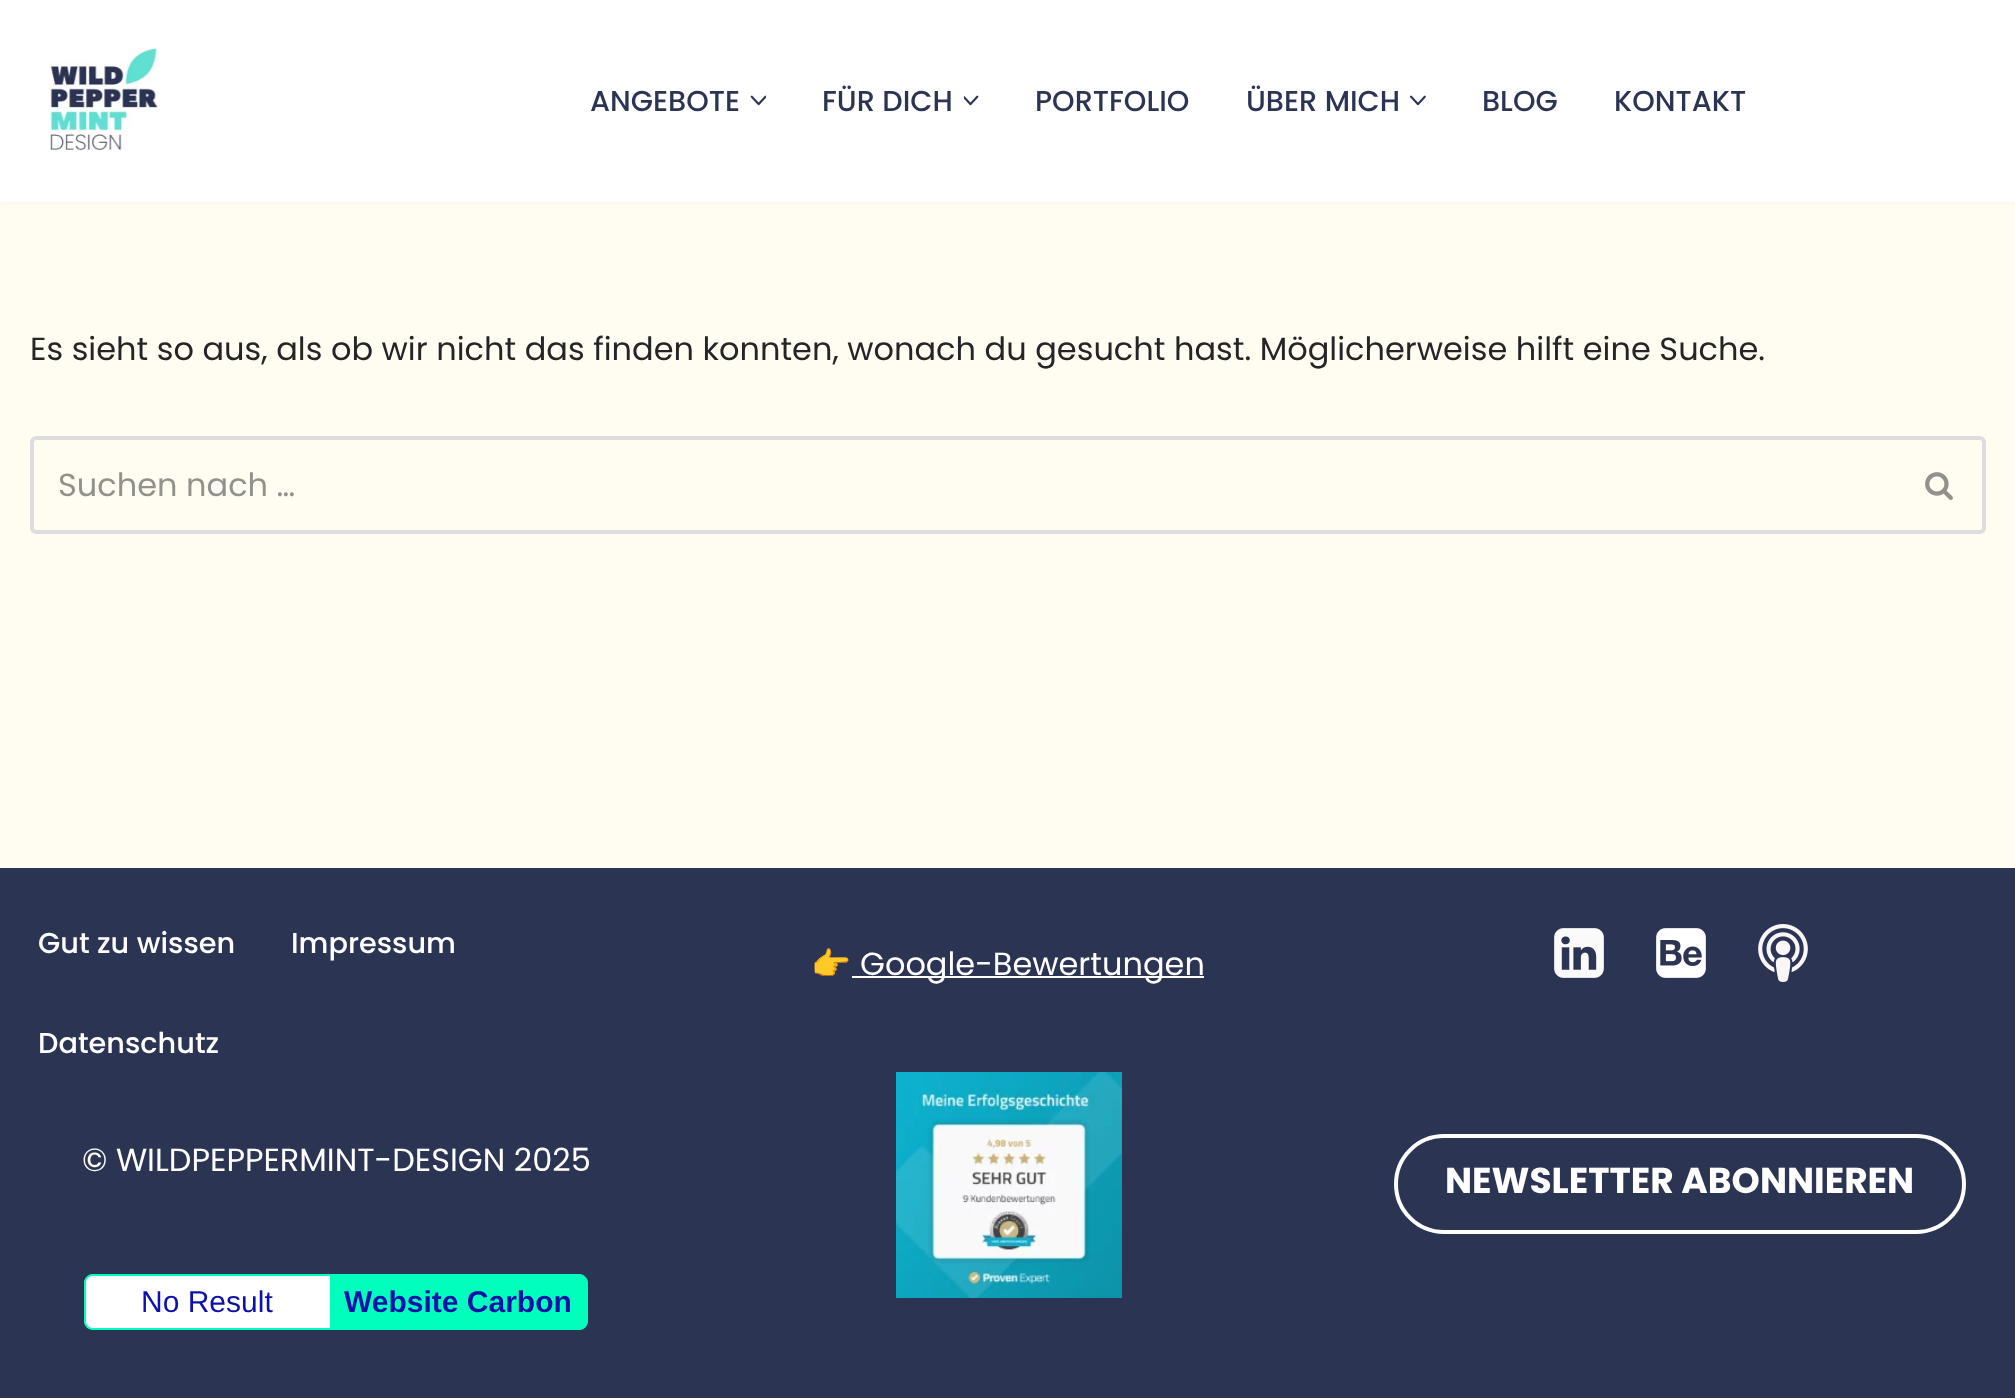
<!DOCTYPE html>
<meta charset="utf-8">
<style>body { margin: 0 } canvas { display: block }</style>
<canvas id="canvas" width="2015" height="1398"></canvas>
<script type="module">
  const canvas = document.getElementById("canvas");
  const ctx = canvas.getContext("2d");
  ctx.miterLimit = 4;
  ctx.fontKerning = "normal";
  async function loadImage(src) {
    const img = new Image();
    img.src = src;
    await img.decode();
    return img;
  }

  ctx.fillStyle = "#fffcf2";
  ctx.fillRect(0, 0, 2015, 1398);
  ctx.fillStyle = "rgba(0, 0, 0, 0.1)";
  ctx.filter = "blur(3px)";
  ctx.beginPath();
  ctx.rect(0, -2, 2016, 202);
  ctx.fill();
  ctx.filter = "none";
  ctx.fillStyle = "#ffffff";
  ctx.fillRect(0, 0, 2015, 202);
  ctx.drawImage(await loadImage("img1.png"), 49, 48, 109, 103);
  ctx.font = "500 28.75px Poppins";
  ctx.fillStyle = "#2b3453";
  ctx.fillText("ANGEBOTE", 590, 111);
  ctx.drawImage(await loadImage("img2.png"), 750, 95, 16, 11);
  ctx.fillText("FÜR DICH", 822, 111);
  ctx.drawImage(await loadImage("img3.png"), 964, 95, 15, 11);
  ctx.fillText("PORTFOLIO", 1035, 111);
  ctx.fillText("ÜBER MICH", 1246, 111);
  ctx.drawImage(await loadImage("img4.png"), 1410, 95, 16, 11);
  ctx.fillText("BLOG", 1482, 111);
  ctx.fillText("KONTAKT", 1614, 111);
  ctx.font = "32px Poppins";
  ctx.fillStyle = "#252525";
  ctx.fillText("Es sieht so aus, als ob wir nicht das finden konnten, wonach du gesucht hast. Möglicherweise hilft eine Suche.", 30, 360);
  ctx.fillStyle = "#dddddd";
  ctx.beginPath();
  ctx.moveTo(36, 436);
  ctx.lineTo(1896, 436);
  ctx.lineTo(1896, 534);
  ctx.lineTo(36, 534);
  ctx.bezierCurveTo(33, 534, 30, 531, 30, 528);
  ctx.lineTo(30, 442);
  ctx.bezierCurveTo(30, 439, 33, 436, 36, 436);
  ctx.closePath();
  ctx.moveTo(36, 440);
  ctx.lineTo(1896, 440);
  ctx.lineTo(1896, 530);
  ctx.lineTo(36, 530);
  ctx.bezierCurveTo(35, 530, 34, 529, 34, 528);
  ctx.lineTo(34, 442);
  ctx.bezierCurveTo(34, 441, 35, 440, 36, 440);
  ctx.closePath();
  ctx.fill("evenodd");
  ctx.fillStyle = "#92918c";
  ctx.fillText("Suchen nach …", 58, 496);
  ctx.fillStyle = "#dddddd";
  ctx.beginPath();
  ctx.moveTo(1896, 436);
  ctx.lineTo(1980, 436);
  ctx.bezierCurveTo(1983, 436, 1986, 439, 1986, 442);
  ctx.lineTo(1986, 528);
  ctx.bezierCurveTo(1986, 531, 1983, 534, 1980, 534);
  ctx.lineTo(1896, 534);
  ctx.closePath();
  ctx.moveTo(1896, 440);
  ctx.lineTo(1980, 440);
  ctx.bezierCurveTo(1981, 440, 1982, 441, 1982, 442);
  ctx.lineTo(1982, 528);
  ctx.bezierCurveTo(1982, 529, 1981, 530, 1980, 530);
  ctx.lineTo(1896, 530);
  ctx.closePath();
  ctx.fill("evenodd");
  ctx.drawImage(await loadImage("img5.png"), 1925, 472, 28, 28);
  ctx.fillStyle = "#2b3453";
  ctx.fillRect(0, 868, 2015, 530);
  ctx.font = "500 28.75px Poppins";
  ctx.fillStyle = "#ffffff";
  ctx.fillText("Gut zu wissen", 38, 953);
  ctx.fillText("Impressum", 291, 953);
  ctx.fillText("Datenschutz", 38, 1053);
  ctx.font = "32px Poppins";
  ctx.fillText("© WILDPEPPERMINT-DESIGN 2025", 82, 1171);
  ctx.beginPath();
  ctx.roundRect(84, 1274, 246, 56, [10, 0, 0, 10]);
  ctx.fill();
  ctx.fillStyle = "#00ffbc";
  ctx.beginPath();
  ctx.moveTo(93, 1274);
  ctx.lineTo(330, 1274);
  ctx.lineTo(330, 1330);
  ctx.lineTo(93, 1330);
  ctx.bezierCurveTo(88, 1330, 84, 1326, 84, 1321);
  ctx.lineTo(84, 1283);
  ctx.bezierCurveTo(84, 1278, 88, 1274, 93, 1274);
  ctx.closePath();
  ctx.moveTo(93, 1276);
  ctx.lineTo(330, 1276);
  ctx.lineTo(330, 1328);
  ctx.lineTo(93, 1328);
  ctx.bezierCurveTo(89, 1328, 86, 1325, 86, 1321);
  ctx.lineTo(86, 1283);
  ctx.bezierCurveTo(86, 1279, 89, 1276, 93, 1276);
  ctx.closePath();
  ctx.fill("evenodd");
  ctx.font = "30px Liberation Sans";
  ctx.fillStyle = "#0e11a8";
  ctx.fillText("No Result", 141, 1312);
  ctx.fillStyle = "#00ffbc";
  ctx.beginPath();
  ctx.roundRect(330, 1274, 258, 56, [0, 10, 10, 0]);
  ctx.fill();
  ctx.beginPath();
  ctx.moveTo(330, 1274);
  ctx.lineTo(579, 1274);
  ctx.bezierCurveTo(584, 1274, 588, 1278, 588, 1283);
  ctx.lineTo(588, 1321);
  ctx.bezierCurveTo(588, 1326, 584, 1330, 579, 1330);
  ctx.lineTo(330, 1330);
  ctx.closePath();
  ctx.moveTo(330, 1276);
  ctx.lineTo(579, 1276);
  ctx.bezierCurveTo(583, 1276, 586, 1279, 586, 1283);
  ctx.lineTo(586, 1321);
  ctx.bezierCurveTo(586, 1325, 583, 1328, 579, 1328);
  ctx.lineTo(330, 1328);
  ctx.closePath();
  ctx.fill("evenodd");
  ctx.font = "bold 30px Liberation Sans";
  ctx.fillStyle = "#0e11a8";
  ctx.fillText("Website Carbon", 344, 1312);
  ctx.font = "32px Noto Color Emoji";
  ctx.fillStyle = "#ffffff";
  ctx.fillText("👉", 811, 975);
  ctx.fillRect(852, 976, 352, 2);
  ctx.font = "32px Poppins";
  ctx.fillText("Google-Bewertungen", 860, 975);
  ctx.drawImage(await loadImage("img6.png"), 896, 1072, 226, 226);
  ctx.drawImage(await loadImage("img7.png"), 1554, 928, 50, 50);
  ctx.drawImage(await loadImage("img8.png"), 1656, 928, 50, 50);
  ctx.drawImage(await loadImage("img9.png"), 1758, 924, 50, 58);
  ctx.beginPath();
  ctx.roundRect(1396, 1136, 568, 96, 48);
  ctx.strokeStyle = "#ffffff";
  ctx.lineWidth = 4;
  ctx.stroke();
  ctx.font = "bold 36px Poppins";
  ctx.fillText("NEWSLETTER ABONNIEREN", 1445, 1193);
</script>
